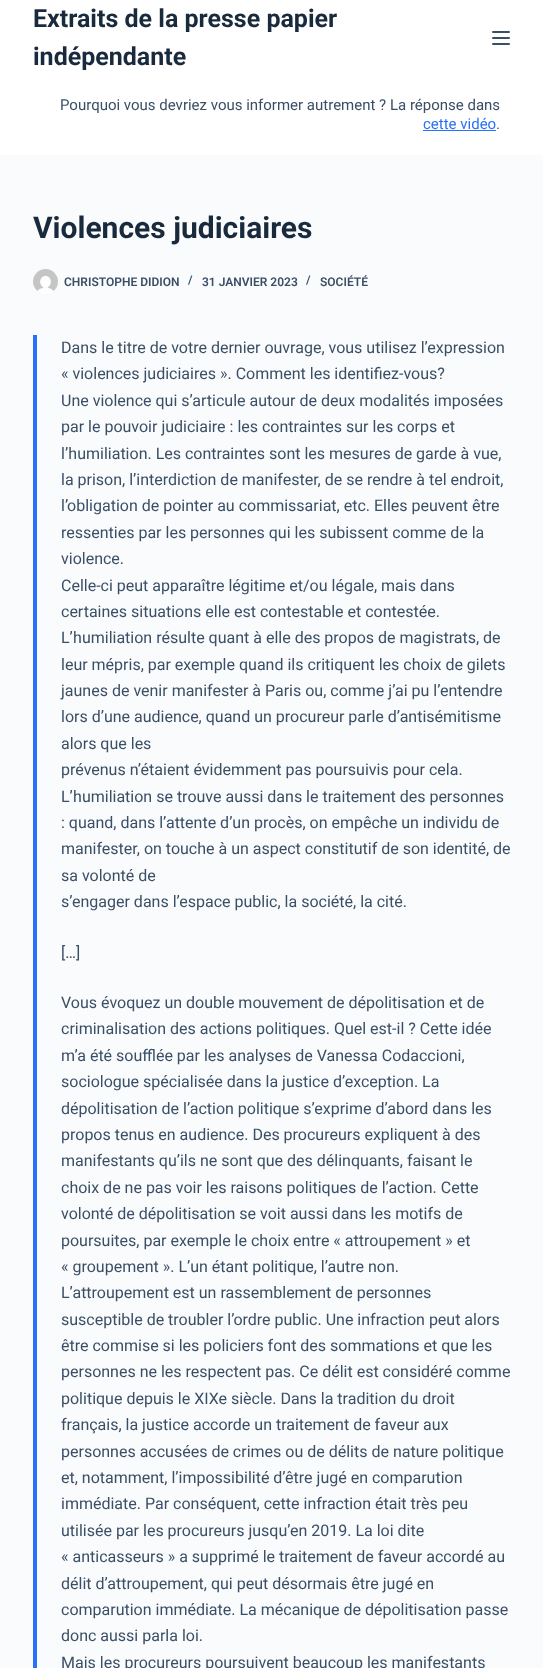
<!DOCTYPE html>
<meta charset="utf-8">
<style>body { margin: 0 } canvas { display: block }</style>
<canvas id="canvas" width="543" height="1668"></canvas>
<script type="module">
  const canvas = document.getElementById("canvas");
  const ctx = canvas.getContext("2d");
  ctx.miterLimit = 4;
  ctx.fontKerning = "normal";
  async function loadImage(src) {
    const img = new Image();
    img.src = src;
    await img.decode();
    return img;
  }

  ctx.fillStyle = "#fafbfc";
  ctx.fillRect(0, 0, 543, 1668);
  ctx.fillStyle = "#ffffff";
  ctx.fillRect(0, 0, 543, 155);
  ctx.font = "bold 25px Roboto";
  ctx.fillStyle = "#192a3d";
  ctx.fillText("Extraits de la presse papier", 33, 27);
  ctx.fillText("indépendante", 33, 65);
  ctx.fillStyle = "#3a4f66";
  ctx.beginPath();
  ctx.roundRect(492, 31, 18, 2, 1);
  ctx.fill();
  ctx.beginPath();
  ctx.roundRect(492, 37, 18, 2, 1);
  ctx.fill();
  ctx.beginPath();
  ctx.roundRect(492, 43, 18, 2, 1);
  ctx.fill();
  ctx.font = "15px Roboto";
  ctx.fillText("Pourquoi vous devriez vous informer autrement ? La réponse dans", 60, 110);
  ctx.fillStyle = "#2872fa";
  ctx.fillText("cette vidéo", 423, 129);
  ctx.fillRect(423, 130, 73, 1);
  ctx.fillStyle = "#3a4f66";
  ctx.fillText(".", 496, 129);
  ctx.font = "bold 30px Roboto";
  ctx.fillStyle = "#192a3d";
  ctx.fillText("Violences judiciaires", 33, 238);
  ctx.drawImage(await loadImage("img1.png"), 33, 269, 25, 25);
  ctx.font = "600 12px Roboto";
  ctx.fillStyle = "#3a4f66";
  ctx.fillText("CHRISTOPHE DIDION", 64, 286);
  ctx.fillText("/", 188, 284);
  ctx.fillText("31 JANVIER 2023", 202, 286);
  ctx.fillText("/", 306, 284);
  ctx.fillText("SOCIÉTÉ", 320, 286);
  ctx.fillStyle = "#2872fa";
  ctx.fillRect(33, 335, 4, 1333);
  ctx.font = "16px Roboto";
  ctx.fillStyle = "#3a4f66";
  ctx.fillText("Dans le titre de votre dernier ouvrage, vous utilisez l’expression", 61, 353);
  ctx.fillText("« violences judiciaires ». Comment les identifiez-vous?", 61, 379);
  ctx.fillText("Une violence qui s’articule autour de deux modalités imposées", 61, 406);
  ctx.fillText("par le pouvoir judiciaire : les contraintes sur les corps et", 61, 432);
  ctx.fillText("l’humiliation. Les contraintes sont les mesures de garde à vue,", 61, 459);
  ctx.fillText("la prison, l’interdiction de manifester, de se rendre à tel endroit,", 61, 485);
  ctx.fillText("l’obligation de pointer au commissariat, etc. Elles peuvent être", 61, 511);
  ctx.fillText("ressenties par les personnes qui les subissent comme de la", 61, 538);
  ctx.fillText("violence.", 61, 564);
  ctx.fillText("Celle-ci peut apparaître légitime et/ou légale, mais dans", 61, 591);
  ctx.fillText("certaines situations elle est contestable et contestée.", 61, 617);
  ctx.fillText("L’humiliation résulte quant à elle des propos de magistrats, de", 61, 643);
  ctx.fillText("leur mépris, par exemple quand ils critiquent les choix de gilets", 61, 670);
  ctx.fillText("jaunes de venir manifester à Paris ou, comme j’ai pu l’entendre", 61, 696);
  ctx.fillText("lors d’une audience, quand un procureur parle d’antisémitisme", 61, 722);
  ctx.fillText("alors que les", 61, 749);
  ctx.fillText("prévenus n’étaient évidemment pas poursuivis pour cela.", 61, 775);
  ctx.fillText("L’humiliation se trouve aussi dans le traitement des personnes", 61, 802);
  ctx.fillText(": quand, dans l’attente d’un procès, on empêche un individu de", 61, 828);
  ctx.fillText("manifester, on touche à un aspect constitutif de son identité, de", 61, 854);
  ctx.fillText("sa volonté de", 61, 881);
  ctx.fillText("s’engager dans l’espace public, la société, la cité.", 61, 907);
  ctx.fillText("[…]", 61, 958);
  ctx.fillText("Vous évoquez un double mouvement de dépolitisation et de", 61, 1008);
  ctx.fillText("criminalisation des actions politiques. Quel est-il ? Cette idée", 61, 1034);
  ctx.fillText("m’a été soufflée par les analyses de Vanessa Codaccioni,", 61, 1061);
  ctx.fillText("sociologue spécialisée dans la justice d’exception. La", 61, 1087);
  ctx.fillText("dépolitisation de l’action politique s’exprime d’abord dans les", 61, 1114);
  ctx.fillText("propos tenus en audience. Des procureurs expliquent à des", 61, 1140);
  ctx.fillText("manifestants qu’ils ne sont que des délinquants, faisant le", 61, 1166);
  ctx.fillText("choix de ne pas voir les raisons politiques de l’action. Cette", 61, 1193);
  ctx.fillText("volonté de dépolitisation se voit aussi dans les motifs de", 61, 1219);
  ctx.fillText("poursuites, par exemple le choix entre « attroupement » et", 61, 1246);
  ctx.fillText("« groupement ». L’un étant politique, l’autre non.", 61, 1272);
  ctx.fillText("L’attroupement est un rassemblement de personnes", 61, 1298);
  ctx.fillText("susceptible de troubler l’ordre public. Une infraction peut alors", 61, 1325);
  ctx.fillText("être commise si les policiers font des sommations et que les", 61, 1351);
  ctx.fillText("personnes ne les respectent pas. Ce délit est considéré comme", 61, 1377);
  ctx.fillText("politique depuis le XIXe siècle. Dans la tradition du droit", 61, 1404);
  ctx.fillText("français, la justice accorde un traitement de faveur aux", 61, 1430);
  ctx.fillText("personnes accusées de crimes ou de délits de nature politique", 61, 1457);
  ctx.fillText("et, notamment, l’impossibilité d’être jugé en comparution", 61, 1483);
  ctx.fillText("immédiate. Par conséquent, cette infraction était très peu", 61, 1509);
  ctx.fillText("utilisée par les procureurs jusqu’en 2019. La loi dite", 61, 1536);
  ctx.fillText("« anticasseurs » a supprimé le traitement de faveur accordé au", 61, 1562);
  ctx.fillText("délit d’attroupement, qui peut désormais être jugé en", 61, 1589);
  ctx.fillText("comparution immédiate. La mécanique de dépolitisation passe", 61, 1615);
  ctx.fillText("donc aussi parla loi.", 61, 1641);
  ctx.fillText("Mais les procureurs poursuivent beaucoup les manifestants", 61, 1668);
</script>
